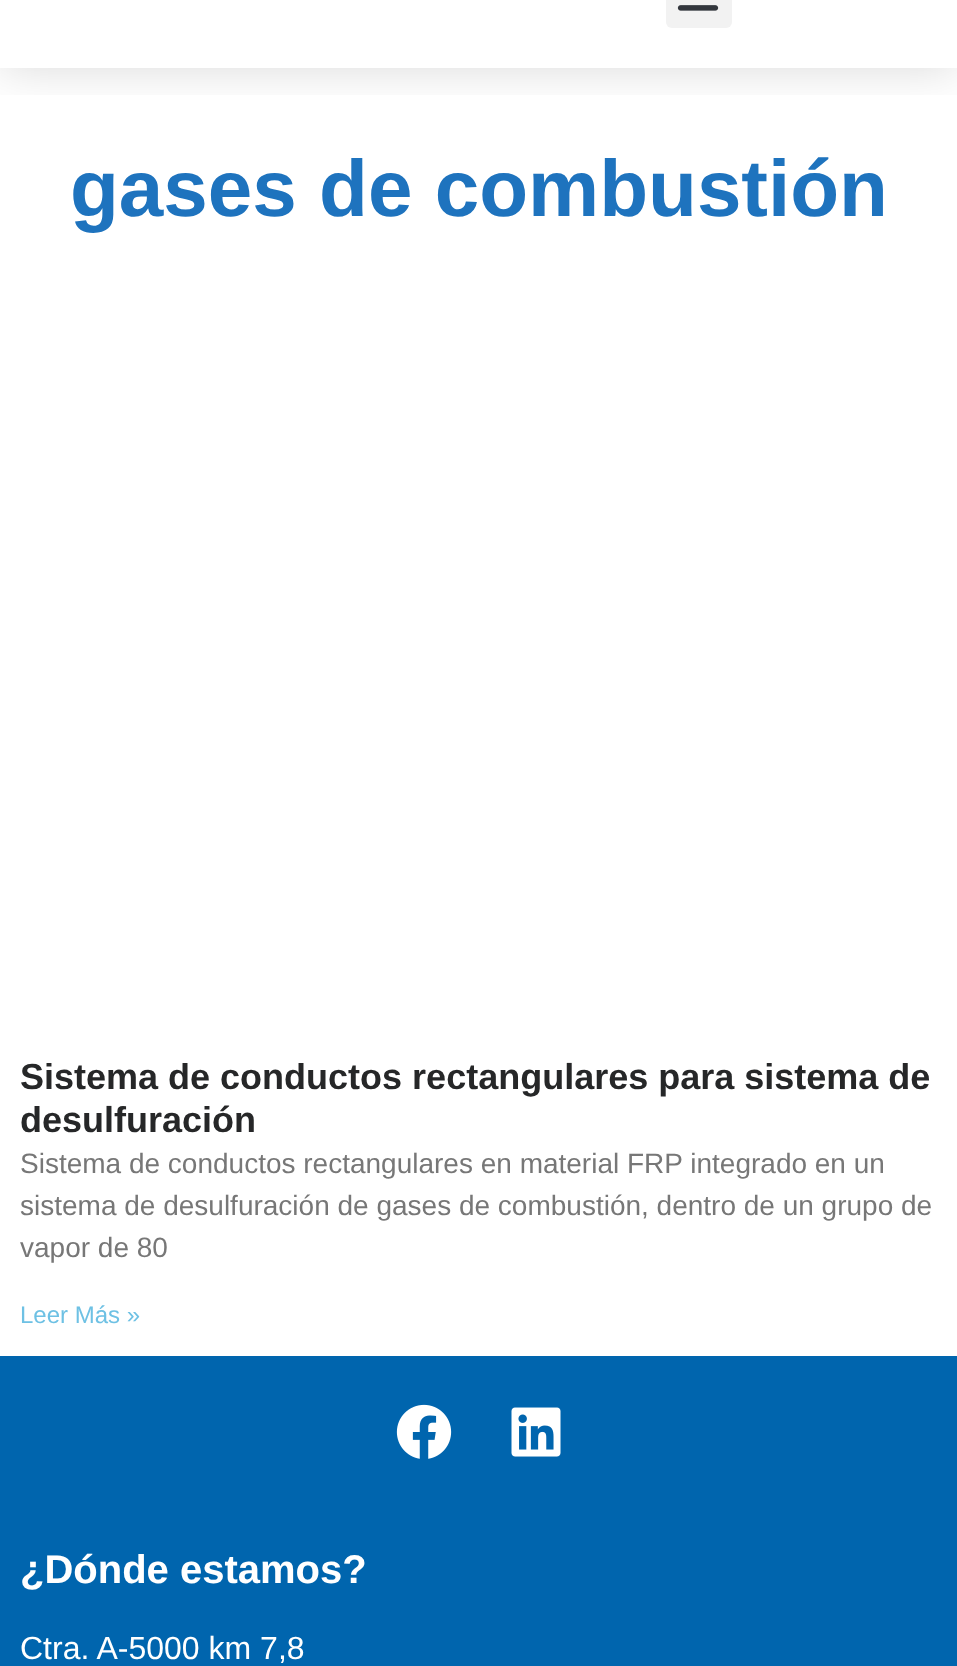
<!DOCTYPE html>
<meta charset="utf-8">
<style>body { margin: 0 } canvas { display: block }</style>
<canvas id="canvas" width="957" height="1666"></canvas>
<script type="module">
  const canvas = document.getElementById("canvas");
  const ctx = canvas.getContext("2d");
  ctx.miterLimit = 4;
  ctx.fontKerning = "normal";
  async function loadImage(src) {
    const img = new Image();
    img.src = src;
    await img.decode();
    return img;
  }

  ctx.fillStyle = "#ffffff";
  ctx.fillRect(0, 0, 957, 1666);
  ctx.save();
  ctx.beginPath();
  ctx.rect(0, 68, 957, 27);
  ctx.clip();
  ctx.fillStyle = "rgba(0, 0, 0, 0.15)";
  ctx.filter = "blur(24px)";
  ctx.beginPath();
  ctx.rect(0, -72, 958, 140);
  ctx.fill();
  ctx.filter = "none";
  ctx.restore();
  ctx.fillStyle = "#f2f2f2";
  ctx.beginPath();
  ctx.roundRect(666, -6, 66, 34, 6);
  ctx.fill();
  ctx.drawImage(await loadImage("img1.png"), 677, 5, 42, 6);
  ctx.font = "bold 80px Liberation Sans";
  ctx.fillStyle = "#1e73be";
  ctx.fillText("gases de combustión", 70, 216);
  ctx.font = "bold 36px Liberation Sans";
  ctx.fillStyle = "#262728";
  ctx.fillText("Sistema de conductos rectangulares para sistema de", 20, 1089);
  ctx.fillText("desulfuración", 20, 1132);
  ctx.font = "28px Liberation Sans";
  ctx.fillStyle = "#777777";
  ctx.fillText("Sistema de conductos rectangulares en material FRP integrado en un", 20, 1173);
  ctx.fillText("sistema de desulfuración de gases de combustión, dentro de un grupo de", 20, 1215);
  ctx.fillText("vapor de 80", 20, 1257);
  ctx.font = "24px Liberation Sans";
  ctx.fillStyle = "#6ec1e4";
  ctx.fillText("Leer Más »", 20, 1323);
  ctx.fillStyle = "#0065ae";
  ctx.fillRect(0, 1356, 957, 310);
  ctx.drawImage(await loadImage("img2.png"), 396, 1404, 56, 55);
  ctx.drawImage(await loadImage("img3.png"), 511, 1407, 50, 50);
  ctx.font = "bold 40px Liberation Sans";
  ctx.fillStyle = "#ffffff";
  ctx.fillText("¿Dónde estamos?", 20, 1583);
  ctx.font = "32px Liberation Sans";
  ctx.fillText("Ctra. A-5000 km 7,8", 20, 1659);
</script>
